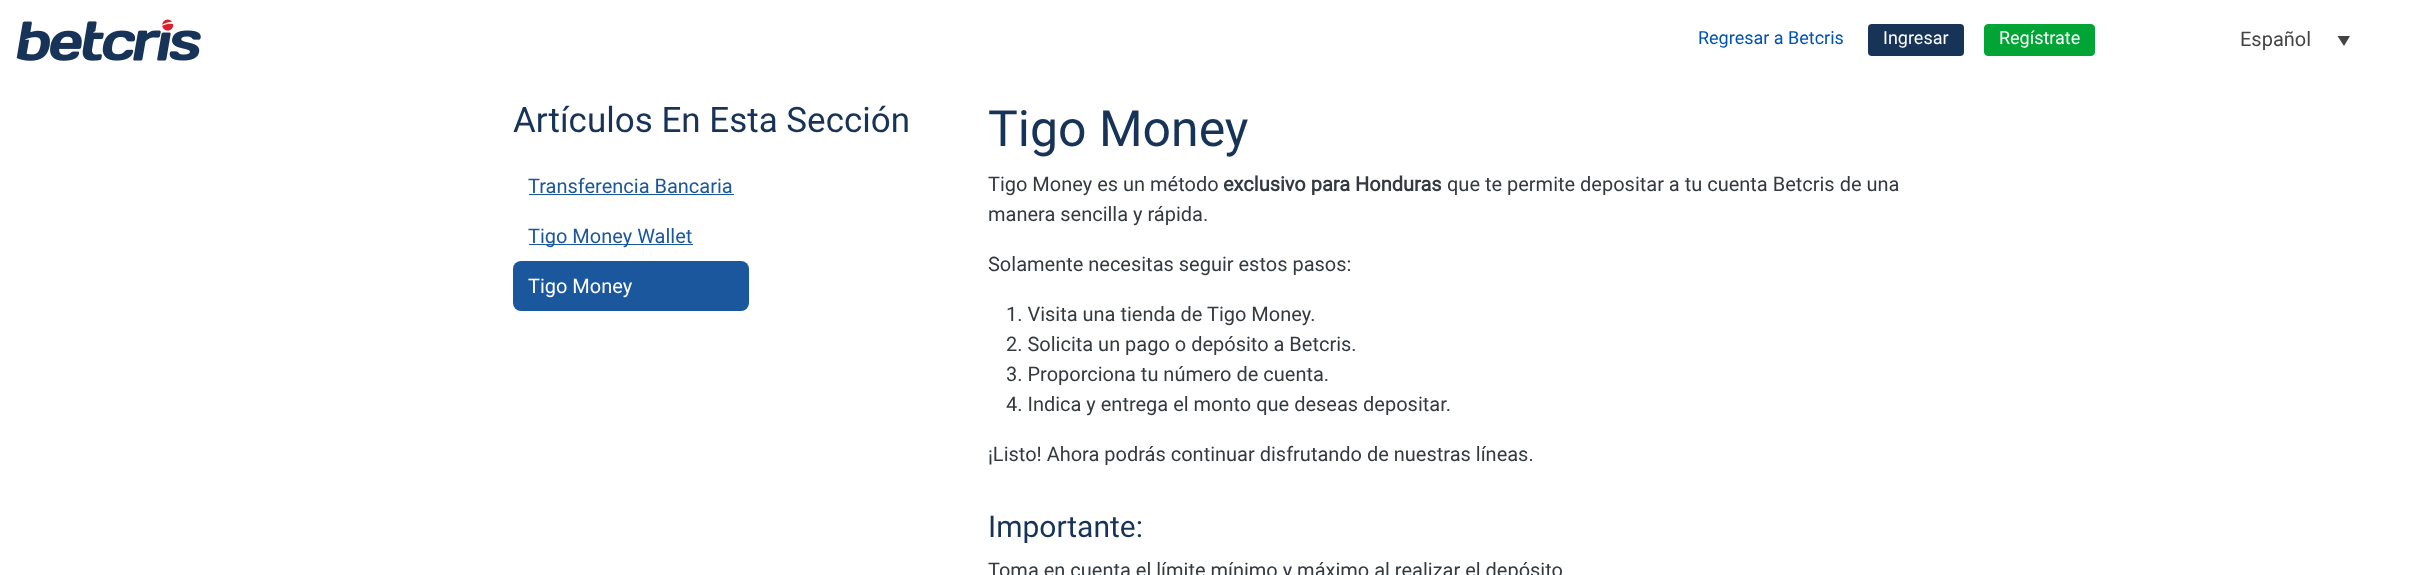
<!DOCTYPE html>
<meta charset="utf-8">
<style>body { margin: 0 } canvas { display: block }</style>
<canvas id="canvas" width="2420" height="575"></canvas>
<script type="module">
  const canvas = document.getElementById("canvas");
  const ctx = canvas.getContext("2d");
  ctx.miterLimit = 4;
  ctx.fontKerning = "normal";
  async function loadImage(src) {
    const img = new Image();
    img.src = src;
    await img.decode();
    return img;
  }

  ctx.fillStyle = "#ffffff";
  ctx.fillRect(0, 0, 2420, 575);
  ctx.drawImage(await loadImage("img1.png"), 16, 19, 185, 42);
  ctx.font = "18px Roboto";
  ctx.fillStyle = "#0053b3";
  ctx.fillText("Regresar a Betcris", 1698, 44);
  ctx.fillStyle = "#173358";
  ctx.beginPath();
  ctx.roundRect(1868, 24, 96, 32, 4);
  ctx.fill();
  ctx.fillStyle = "#ffffff";
  ctx.fillText("Ingresar", 1883, 44);
  ctx.fillStyle = "#00a535";
  ctx.beginPath();
  ctx.roundRect(1984.5, 24.5, 110, 31, 3.5);
  ctx.fill();
  ctx.strokeStyle = "#00a535";
  ctx.stroke();
  ctx.fillStyle = "#ffffff";
  ctx.fillText("Regístrate", 1999, 44);
  ctx.font = "20px Roboto";
  ctx.fillStyle = "#444444";
  ctx.fillText("Español", 2240, 46);
  ctx.beginPath();
  ctx.moveTo(2337.5, 36);
  ctx.lineTo(2350, 36);
  ctx.lineTo(2344, 46);
  ctx.closePath();
  ctx.fill();
  ctx.font = "35px Roboto";
  ctx.fillStyle = "#173358";
  ctx.fillText("Artículos En Esta Sección", 513, 132);
  ctx.font = "20px Roboto";
  ctx.fillStyle = "#1b579d";
  ctx.fillText("Transferencia Bancaria", 528, 193);
  ctx.fillRect(529, 194, 205, 1);
  ctx.fillRect(529, 244, 164, 1);
  ctx.fillText("Tigo Money Wallet", 528, 243);
  ctx.beginPath();
  ctx.roundRect(513, 261, 236, 50, 8);
  ctx.fill();
  ctx.fillStyle = "#ffffff";
  ctx.fillText("Tigo Money", 528, 293);
  ctx.font = "50px Roboto";
  ctx.fillStyle = "#173358";
  ctx.fillText("Tigo Money", 988, 146);
  ctx.font = "20px Roboto";
  ctx.fillStyle = "#343a40";
  ctx.fillText("Tigo Money es un método", 988, 191);
  ctx.font = "bold 20px Roboto";
  ctx.fillText("exclusivo para Honduras", 1223, 191);
  ctx.font = "20px Roboto";
  ctx.fillText("que te permite depositar a tu cuenta Betcris de una", 1447, 191);
  ctx.fillText("manera sencilla y rápida.", 988, 221);
  ctx.fillText("Solamente necesitas seguir estos pasos:", 988, 271);
  ctx.fillText("1. Visita una tienda de Tigo Money.", 1006, 321);
  ctx.fillText("2. Solicita un pago o depósito a Betcris.", 1006, 351);
  ctx.fillText("3. Proporciona tu número de cuenta.", 1006, 381);
  ctx.fillText("4. Indica y entrega el monto que deseas depositar.", 1006, 411);
  ctx.fillText("¡Listo! Ahora podrás continuar disfrutando de nuestras líneas.", 988, 461);
  ctx.font = "30px Roboto";
  ctx.fillStyle = "#173358";
  ctx.fillText("Importante:", 988, 537);
  ctx.font = "20px Roboto";
  ctx.fillStyle = "#343a40";
  ctx.fillText("Toma en cuenta el límite mínimo y máximo al realizar el depósito", 988, 577);
</script>
